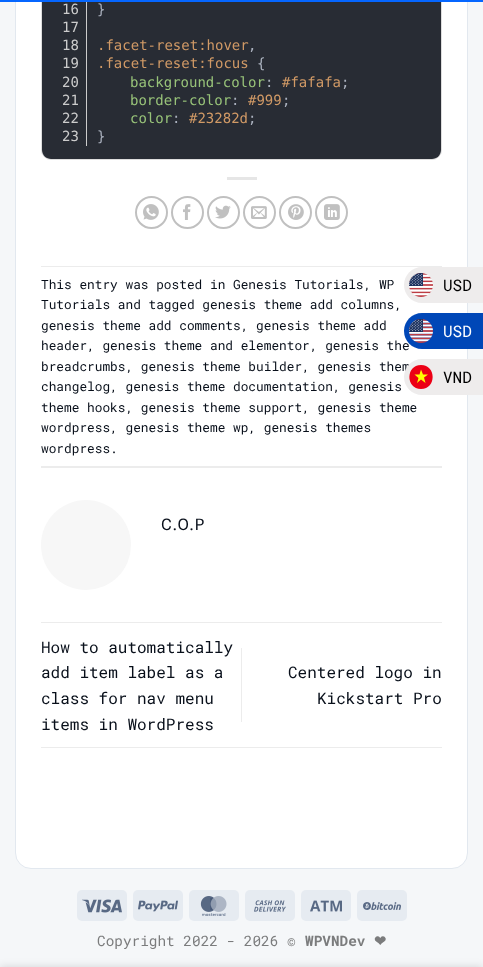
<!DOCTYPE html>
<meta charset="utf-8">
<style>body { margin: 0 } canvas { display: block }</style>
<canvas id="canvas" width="483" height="967"></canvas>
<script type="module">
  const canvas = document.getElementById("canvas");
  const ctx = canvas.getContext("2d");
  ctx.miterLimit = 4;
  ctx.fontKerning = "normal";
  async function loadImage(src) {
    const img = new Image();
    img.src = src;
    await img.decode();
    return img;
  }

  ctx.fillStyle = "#f5f7f9";
  ctx.fillRect(0, 0, 483, 967);
  ctx.fillStyle = "#ffffff";
  ctx.beginPath();
  ctx.roundRect(15.5, -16.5, 452, 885, 15.5);
  ctx.fill();
  ctx.strokeStyle = "#e2e8ef";
  ctx.stroke();
  ctx.beginPath();
  ctx.roundRect(41.5, -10.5, 400, 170, 9.5);
  ctx.strokeStyle = "#dddddd";
  ctx.stroke();
  ctx.fillStyle = "#282c34";
  ctx.beginPath();
  ctx.moveTo(42, -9);
  ctx.lineTo(441, -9);
  ctx.lineTo(441, 150);
  ctx.bezierCurveTo(441, 155, 437, 159, 432, 159);
  ctx.lineTo(51, 159);
  ctx.bezierCurveTo(46, 159, 42, 155, 42, 150);
  ctx.closePath();
  ctx.fill();
  ctx.fillStyle = "#cccccc";
  ctx.fillRect(86, 0, 1, 146);
  ctx.fillStyle = "#0566ff";
  ctx.fillRect(0, 0, 483, 2);
  ctx.font = "14px DejaVu Sans Mono";
  ctx.fillStyle = "#cccccc";
  ctx.fillText("16", 62, 14);
  ctx.fillStyle = "#abb2bf";
  ctx.fillText("}", 97, 14);
  ctx.fillStyle = "#cccccc";
  ctx.fillText("17", 62, 32);
  ctx.fillText("18", 62, 50);
  ctx.fillStyle = "#d19a66";
  ctx.fillText(".facet-reset:hover", 97, 50);
  ctx.fillStyle = "#abb2bf";
  ctx.fillText(",", 248, 50);
  ctx.fillStyle = "#cccccc";
  ctx.fillText("19", 62, 68);
  ctx.fillStyle = "#d19a66";
  ctx.fillText(".facet-reset:focus", 97, 68);
  ctx.fillStyle = "#abb2bf";
  ctx.fillText("{", 257, 68);
  ctx.fillStyle = "#cccccc";
  ctx.fillText("20", 62, 87);
  ctx.fillStyle = "#98c379";
  ctx.fillText("background-color", 130, 87);
  ctx.fillStyle = "#abb2bf";
  ctx.fillText(":", 265, 87);
  ctx.fillStyle = "#d19a66";
  ctx.fillText("#fafafa", 282, 87);
  ctx.fillStyle = "#abb2bf";
  ctx.fillText(";", 341, 87);
  ctx.fillStyle = "#cccccc";
  ctx.fillText("21", 62, 105);
  ctx.fillStyle = "#98c379";
  ctx.fillText("border-color", 130, 105);
  ctx.fillStyle = "#abb2bf";
  ctx.fillText(":", 231, 105);
  ctx.fillStyle = "#d19a66";
  ctx.fillText("#999", 248, 105);
  ctx.fillStyle = "#abb2bf";
  ctx.fillText(";", 282, 105);
  ctx.fillStyle = "#cccccc";
  ctx.fillText("22", 62, 123);
  ctx.fillStyle = "#98c379";
  ctx.fillText("color", 130, 123);
  ctx.fillStyle = "#abb2bf";
  ctx.fillText(":", 172, 123);
  ctx.fillStyle = "#d19a66";
  ctx.fillText("#23282d", 189, 123);
  ctx.fillStyle = "#abb2bf";
  ctx.fillText(";", 248, 123);
  ctx.fillStyle = "#cccccc";
  ctx.fillText("23", 62, 141);
  ctx.fillStyle = "#abb2bf";
  ctx.fillText("}", 97, 141);
  ctx.fillStyle = "#e6e6e6";
  ctx.fillRect(227, 177, 30, 3);
  ctx.beginPath();
  ctx.arc(151.5, 212.5, 15.5, 0, Math.PI * 2);
  ctx.strokeStyle = "#c0c0c0";
  ctx.lineWidth = 2;
  ctx.stroke();
  ctx.drawImage(await loadImage("img1.png"), 143, 204, 16, 16);
  ctx.beginPath();
  ctx.arc(187.5, 212.5, 15.5, 0, Math.PI * 2);
  ctx.stroke();
  ctx.drawImage(await loadImage("img2.png"), 183, 204, 8, 16);
  ctx.beginPath();
  ctx.arc(223.5, 212.5, 15.5, 0, Math.PI * 2);
  ctx.stroke();
  ctx.drawImage(await loadImage("img3.png"), 215, 205, 16, 14);
  ctx.beginPath();
  ctx.arc(259.5, 212.5, 15.5, 0, Math.PI * 2);
  ctx.stroke();
  ctx.drawImage(await loadImage("img4.png"), 251, 206, 16, 13);
  ctx.beginPath();
  ctx.arc(295.5, 212.5, 15.5, 0, Math.PI * 2);
  ctx.stroke();
  ctx.drawImage(await loadImage("img5.png"), 288, 204, 16, 16);
  ctx.beginPath();
  ctx.arc(331.5, 212.5, 15.5, 0, Math.PI * 2);
  ctx.stroke();
  ctx.drawImage(await loadImage("img6.png"), 324, 204, 16, 16);
  ctx.fillStyle = "#ececec";
  ctx.fillRect(41, 266, 401, 1);
  ctx.fillRect(41, 466, 401, 2);
  ctx.font = "12.8px Roboto Mono";
  ctx.fillStyle = "#080f1a";
  ctx.fillText("This entry was posted in Genesis Tutorials, WP", 41, 289);
  ctx.fillText("Tutorials and tagged genesis theme add columns,", 41, 309);
  ctx.fillText("genesis theme add comments, genesis theme add", 41, 330);
  ctx.fillText("header, genesis theme and elementor, genesis the", 41, 350);
  ctx.fillText("breadcrumbs, genesis theme builder, genesis them", 41, 371);
  ctx.fillText("changelog, genesis theme documentation, genesis", 41, 391);
  ctx.fillText("theme hooks, genesis theme support, genesis theme", 41, 412);
  ctx.fillText("wordpress, genesis theme wp, genesis themes", 41, 432);
  ctx.fillText("wordpress.", 41, 453);
  ctx.fillStyle = "#f7f7f7";
  ctx.beginPath();
  ctx.arc(86, 545, 45, 0, Math.PI * 2);
  ctx.fill();
  ctx.letterSpacing = "1px";
  ctx.font = "16px Roboto Flex";
  ctx.fillStyle = "#080f1a";
  ctx.fillText("C.O.P", 161, 530);
  ctx.fillStyle = "#ececec";
  ctx.fillRect(41, 622, 401, 1);
  ctx.fillRect(41, 747, 401, 1);
  ctx.letterSpacing = "0px";
  ctx.font = "16px Roboto Mono";
  ctx.fillStyle = "#080f1a";
  ctx.fillText("How to automatically", 41, 653);
  ctx.fillText("add item label as a", 41, 678);
  ctx.fillText("class for nav menu", 41, 704);
  ctx.fillText("items in WordPress", 41, 730);
  ctx.fillStyle = "#ececec";
  ctx.fillRect(241, 648, 1, 74);
  ctx.fillStyle = "#080f1a";
  ctx.fillText("Centered logo in", 288, 678);
  ctx.fillText("Kickstart Pro", 317, 704);
  ctx.fillStyle = "#e6ebf1";
  ctx.beginPath();
  ctx.roundRect(77, 890, 50, 31, 5);
  ctx.fill();
  ctx.drawImage(await loadImage("img7.png"), 82, 899, 40, 14);
  ctx.beginPath();
  ctx.roundRect(133, 890, 50, 31, 5);
  ctx.fill();
  ctx.drawImage(await loadImage("img8.png"), 138, 900, 40, 12);
  ctx.beginPath();
  ctx.roundRect(189, 890, 50, 31, 5);
  ctx.fill();
  ctx.drawImage(await loadImage("img9.png"), 200, 896, 27, 20);
  ctx.beginPath();
  ctx.roundRect(245, 890, 50, 31, 5);
  ctx.fill();
  ctx.drawImage(await loadImage("img10.png"), 254, 900, 32, 12);
  ctx.beginPath();
  ctx.roundRect(301, 890, 50, 31, 5);
  ctx.fill();
  ctx.drawImage(await loadImage("img11.png"), 310, 900, 32, 12);
  ctx.beginPath();
  ctx.roundRect(357, 890, 50, 31, 5);
  ctx.fill();
  ctx.drawImage(await loadImage("img12.png"), 363, 902, 38, 8);
  ctx.font = "14.4px Roboto Mono";
  ctx.fillStyle = "#7b7c7d";
  ctx.fillText("Copyright 2022 - 2026 ©", 97, 946);
  ctx.font = "bold 14.4px Roboto Mono";
  ctx.fillText("WPVNDev", 305, 946);
  ctx.font = "bold 14.4px DejaVu Sans";
  ctx.fillText("❤", 374, 946);
  ctx.fillStyle = "#eeecec";
  ctx.beginPath();
  ctx.moveTo(422, 267);
  ctx.lineTo(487, 267);
  ctx.lineTo(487, 303);
  ctx.lineTo(422, 303);
  ctx.bezierCurveTo(412, 303, 404, 295, 404, 285);
  ctx.bezierCurveTo(404, 275, 412, 267, 422, 267);
  ctx.closePath();
  ctx.fill();
  ctx.drawImage(await loadImage("img13.png"), 409, 273, 24, 24);
  ctx.font = "16px Roboto Mono";
  ctx.fillStyle = "#000000";
  ctx.fillText("USD", 443, 291);
  ctx.fillStyle = "#0047b7";
  ctx.beginPath();
  ctx.moveTo(422, 313);
  ctx.lineTo(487, 313);
  ctx.lineTo(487, 349);
  ctx.lineTo(422, 349);
  ctx.bezierCurveTo(412, 349, 404, 341, 404, 331);
  ctx.bezierCurveTo(404, 321, 412, 313, 422, 313);
  ctx.closePath();
  ctx.fill();
  ctx.drawImage(await loadImage("img14.png"), 409, 319, 24, 24);
  ctx.fillStyle = "#ffffff";
  ctx.fillText("USD", 443, 337);
  ctx.fillStyle = "#eeecec";
  ctx.beginPath();
  ctx.moveTo(422, 359);
  ctx.lineTo(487, 359);
  ctx.lineTo(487, 395);
  ctx.lineTo(422, 395);
  ctx.bezierCurveTo(412, 395, 404, 387, 404, 377);
  ctx.bezierCurveTo(404, 367, 412, 359, 422, 359);
  ctx.closePath();
  ctx.fill();
  ctx.fillStyle = "#ec0015";
  ctx.beginPath();
  ctx.moveTo(421, 365);
  ctx.bezierCurveTo(436.5, 365, 436.5, 389, 421, 389);
  ctx.bezierCurveTo(405.5, 389, 405.5, 365, 421, 365);
  ctx.closePath();
  ctx.fill();
  ctx.fillStyle = "#ffff00";
  ctx.beginPath();
  ctx.moveTo(425.5, 383);
  ctx.lineTo(421, 379.5);
  ctx.lineTo(417, 383);
  ctx.lineTo(418.5, 378);
  ctx.lineTo(414.5, 374.5);
  ctx.lineTo(419.5, 374.5);
  ctx.lineTo(421, 369.5);
  ctx.lineTo(423, 374.5);
  ctx.lineTo(428, 374.5);
  ctx.lineTo(424, 377.5);
  ctx.closePath();
  ctx.fill("evenodd");
  ctx.fillStyle = "#000000";
  ctx.fillText("VND", 443, 383);
  ctx.fillStyle = "rgba(0, 0, 0, 0.14)";
  ctx.filter = "blur(4.5px)";
  ctx.beginPath();
  ctx.rect(0, 967, 483, 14);
  ctx.fill();
  ctx.filter = "none";
</script>
